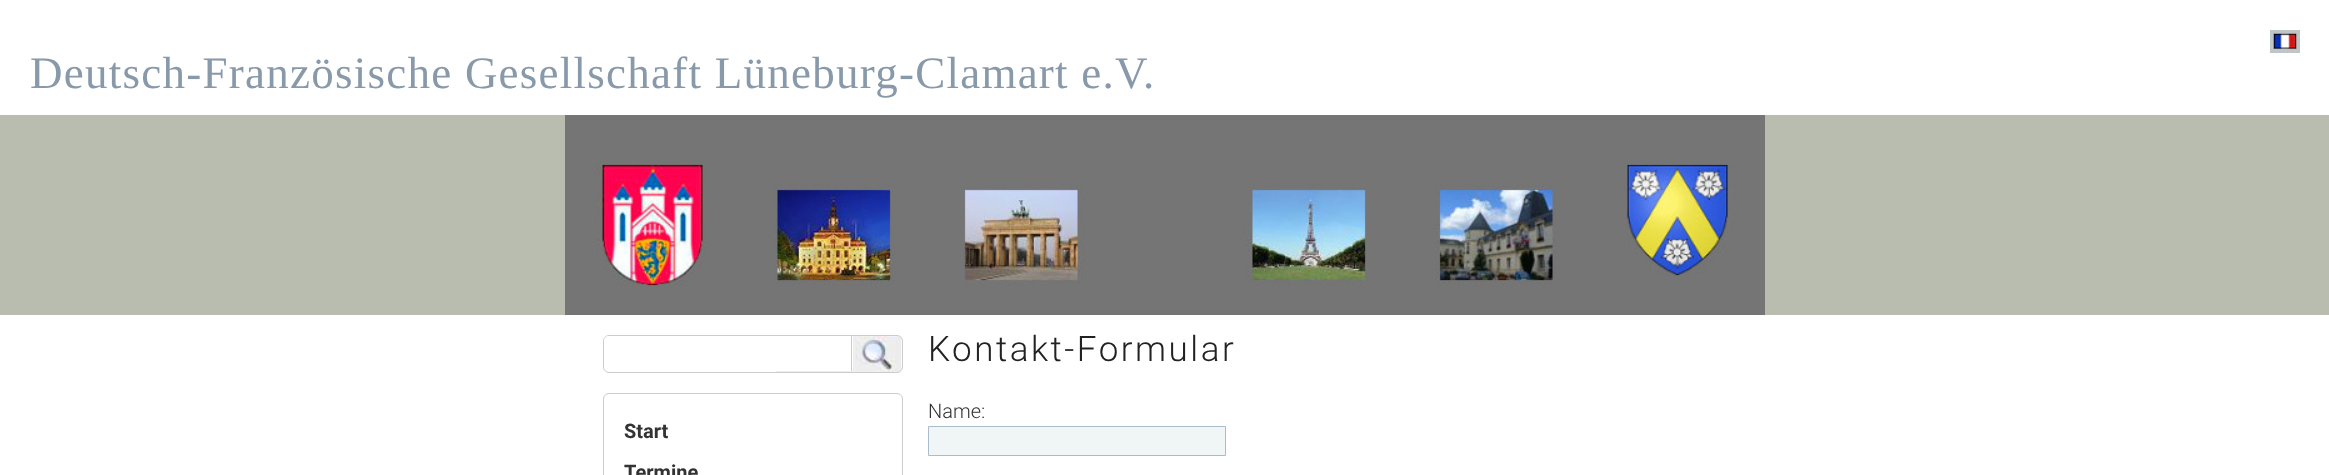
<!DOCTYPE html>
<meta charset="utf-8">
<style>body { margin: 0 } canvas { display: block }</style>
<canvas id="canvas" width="2329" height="475"></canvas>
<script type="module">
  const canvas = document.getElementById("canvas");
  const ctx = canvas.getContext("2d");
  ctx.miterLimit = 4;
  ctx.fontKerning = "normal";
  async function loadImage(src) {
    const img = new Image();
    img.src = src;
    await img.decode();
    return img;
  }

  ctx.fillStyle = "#ffffff";
  ctx.fillRect(0, 0, 2329, 475);
  ctx.strokeStyle = "#c0c6c6";
  ctx.lineWidth = 4;
  ctx.strokeRect(2272, 32, 26, 19);
  ctx.drawImage(await loadImage("img1.png"), 2273, 33, 24, 16);
  ctx.letterSpacing = "1.25px";
  ctx.font = "45px Liberation Serif";
  ctx.fillStyle = "#8899aa";
  ctx.fillText("Deutsch-Französische Gesellschaft Lüneburg-Clamart e.V.", 30, 88);
  ctx.fillStyle = "#b9bdaf";
  ctx.fillRect(0, 115, 2329, 200);
  ctx.drawImage(await loadImage("img2.png"), 565, 115, 1200, 200);
  ctx.letterSpacing = "2.5px";
  ctx.font = "300 35px Roboto";
  ctx.fillStyle = "#222222";
  ctx.fillText("Kontakt-Formular", 928, 361);
  ctx.letterSpacing = "0px";
  ctx.font = "300 20px Roboto";
  ctx.fillStyle = "#333333";
  ctx.fillText("Name:", 928, 418);
  ctx.fillStyle = "#f0f6f6";
  ctx.beginPath();
  ctx.rect(928.5, 426.5, 297, 29);
  ctx.fill();
  ctx.strokeStyle = "#aabbcc";
  ctx.lineWidth = 1;
  ctx.stroke();
  ctx.drawImage(await loadImage("img3.png"), 776, 336, 126, 37);
  ctx.beginPath();
  ctx.roundRect(603.5, 335.5, 299, 37, 5.5);
  ctx.strokeStyle = "#cccccc";
  ctx.stroke();
  ctx.fillStyle = "#ffffff";
  ctx.beginPath();
  ctx.roundRect(604, 336, 249, 35, [5, 0, 0, 5]);
  ctx.fill();
  ctx.fillStyle = "#cccccc";
  ctx.fillRect(851, 336, 1, 35);
  ctx.beginPath();
  ctx.roundRect(603.5, 393.5, 299, 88, 5.5);
  ctx.stroke();
  ctx.font = "bold 20px Roboto";
  ctx.fillStyle = "#333333";
  ctx.fillText("Start", 624, 438);
  ctx.fillText("Termine", 624, 479);
</script>
